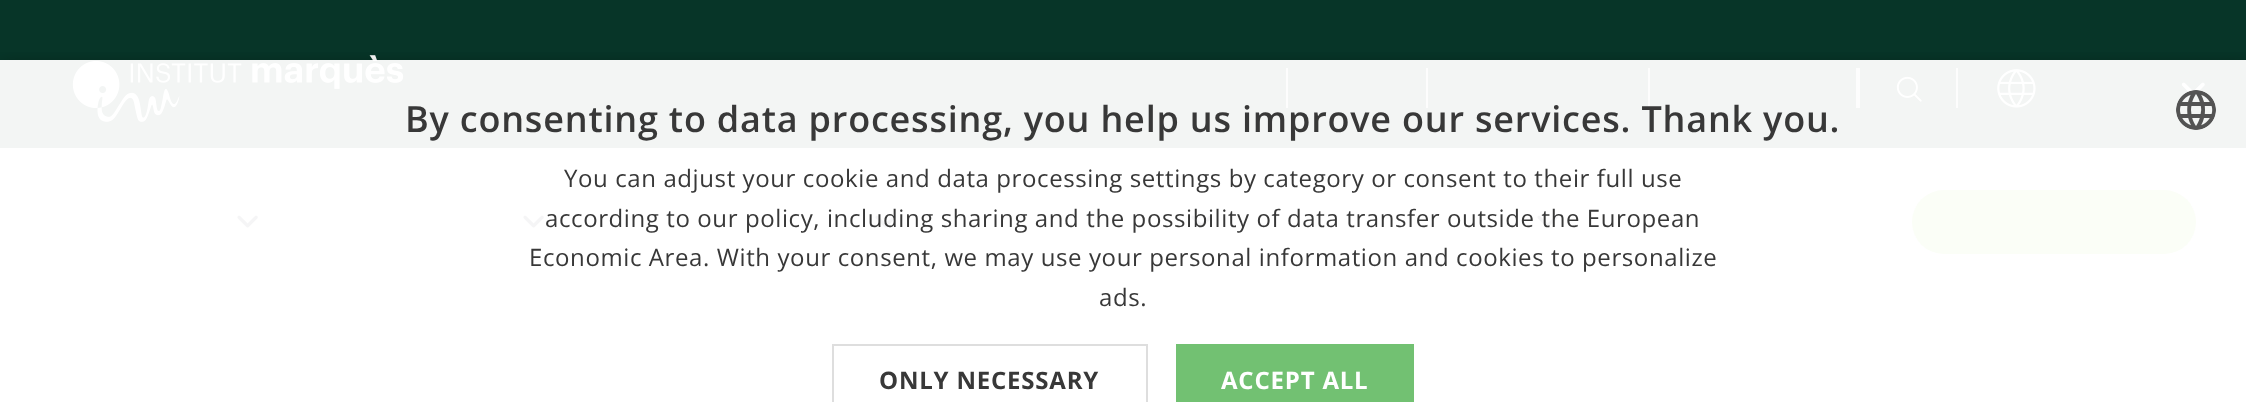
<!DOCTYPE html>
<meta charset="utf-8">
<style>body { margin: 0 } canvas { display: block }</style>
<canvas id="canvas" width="2246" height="402"></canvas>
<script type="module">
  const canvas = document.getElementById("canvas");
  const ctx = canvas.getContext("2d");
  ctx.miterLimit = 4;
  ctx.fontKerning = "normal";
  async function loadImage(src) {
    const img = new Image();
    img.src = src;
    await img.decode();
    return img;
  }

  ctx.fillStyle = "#ffffff";
  ctx.fillRect(0, 0, 2246, 402);
  ctx.fillStyle = "#073528";
  ctx.fillRect(0, 0, 2246, 60);
  ctx.fillStyle = "#f3f5f4";
  ctx.fillRect(0, 60, 2246, 88);
  ctx.drawImage(await loadImage("img1.png"), 72, 55, 332, 67);
  ctx.fillStyle = "#fdfdfd";
  ctx.fillRect(1286, 68, 2, 40);
  ctx.fillRect(1426, 68, 2, 40);
  ctx.fillRect(1648, 68, 2, 40);
  ctx.fillRect(1856, 68, 4, 40);
  ctx.drawImage(await loadImage("img2.png"), 1896, 76, 26, 26);
  ctx.fillRect(1956, 68, 2, 40);
  ctx.drawImage(await loadImage("img3.png"), 1997, 69, 39, 39);
  ctx.drawImage(await loadImage("img4.png"), 2181, 82, 24, 14);
  ctx.drawImage(await loadImage("img5.png"), 237, 215, 21, 13);
  ctx.drawImage(await loadImage("img5.png"), 523, 215, 21, 13);
  ctx.drawImage(await loadImage("img5.png"), 875, 215, 21, 13);
  ctx.drawImage(await loadImage("img5.png"), 1191, 215, 21, 13);
  ctx.drawImage(await loadImage("img5.png"), 1537, 215, 21, 13);
  ctx.fillStyle = "#fbfef7";
  ctx.beginPath();
  ctx.roundRect(1912, 190, 284, 64, 32);
  ctx.fill();
  ctx.save();
  ctx.beginPath();
  ctx.rect(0, 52, 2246, 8);
  ctx.clip();
  ctx.fillStyle = "rgba(0, 0, 0, 0.33)";
  ctx.filter = "blur(8px)";
  ctx.beginPath();
  ctx.rect(2, 64, 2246, 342);
  ctx.fill();
  ctx.filter = "none";
  ctx.restore();
  ctx.letterSpacing = "0.8px";
  ctx.font = "600 36px Open Sans";
  ctx.fillStyle = "#383838";
  ctx.fillText("By consenting to data processing, you help us improve our services. Thank you.", 405, 132);
  ctx.drawImage(await loadImage("img6.png"), 2176, 90, 40, 40);
  ctx.letterSpacing = "0.6px";
  ctx.font = "24px Open Sans";
  ctx.fillText("You can adjust your cookie and data processing settings by category or consent to their full use", 564, 187);
  ctx.fillText("according to our policy, including sharing and the possibility of data transfer outside the European", 545, 227);
  ctx.fillText("Economic Area. With your consent, we may use your personal information and cookies to personalize", 529, 266);
  ctx.fillText("ads.", 1099, 306);
  ctx.strokeStyle = "#dedede";
  ctx.lineWidth = 2;
  ctx.strokeRect(833, 345, 314, 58);
  ctx.letterSpacing = "0.8px";
  ctx.font = "bold 24px Open Sans";
  ctx.fillText("ONLY NECESSARY", 879, 389);
  ctx.fillStyle = "#72c172";
  ctx.fillRect(1176, 344, 238, 58);
  ctx.fillStyle = "#ffffff";
  ctx.fillText("ACCEPT ALL", 1221, 389);
</script>
